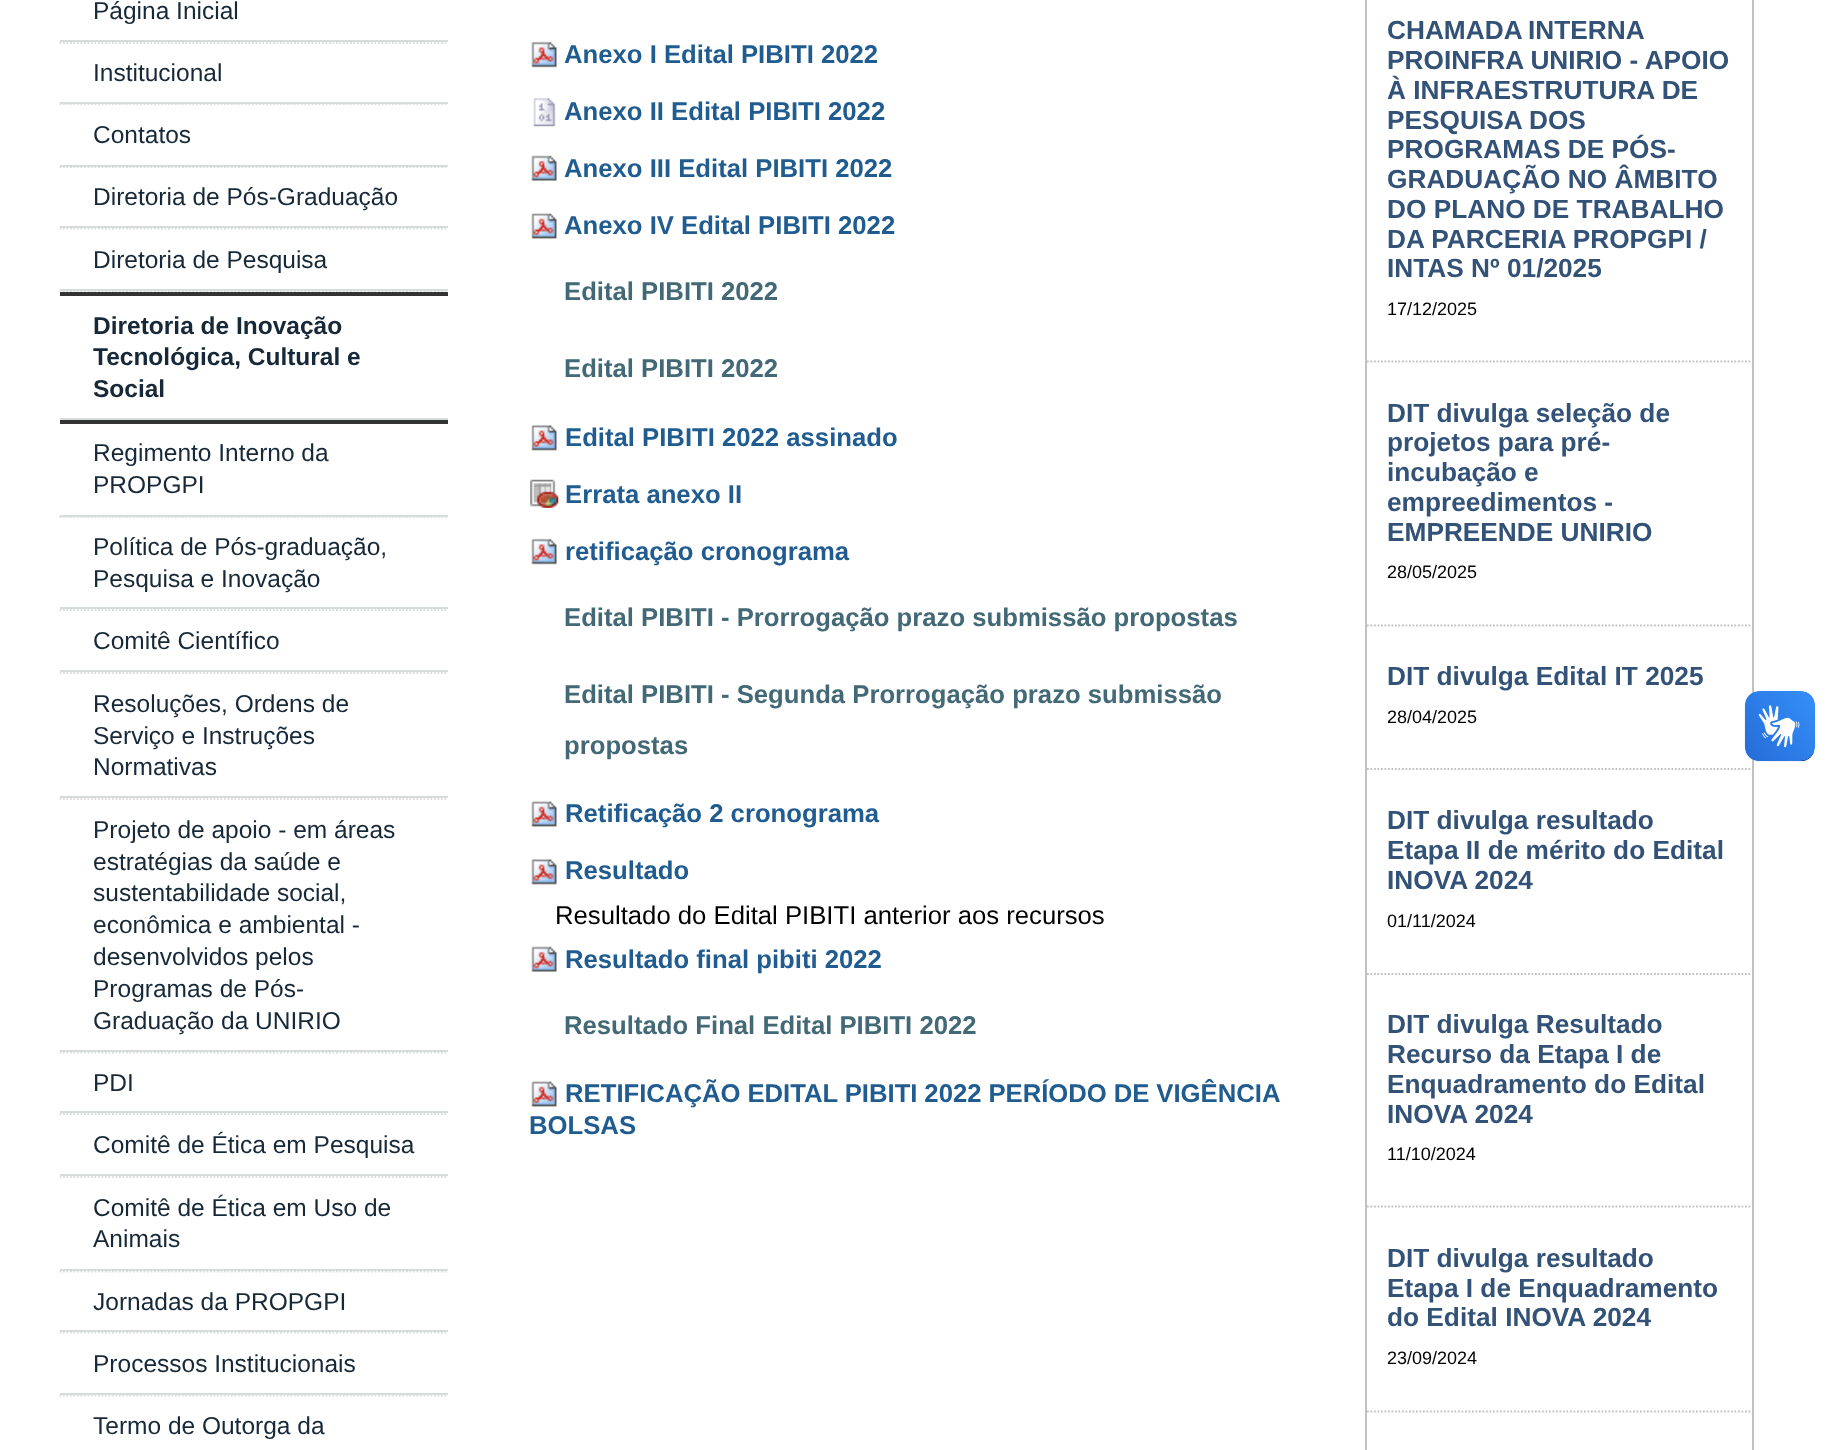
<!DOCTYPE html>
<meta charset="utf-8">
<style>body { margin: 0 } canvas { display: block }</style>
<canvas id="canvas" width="1831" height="1450"></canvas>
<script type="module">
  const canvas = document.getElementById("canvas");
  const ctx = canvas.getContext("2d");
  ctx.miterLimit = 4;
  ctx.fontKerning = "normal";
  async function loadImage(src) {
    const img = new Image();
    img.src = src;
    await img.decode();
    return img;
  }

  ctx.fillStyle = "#ffffff";
  ctx.fillRect(0, 0, 1831, 1450);
  ctx.beginPath();
  ctx.moveTo(59.5, 43);
  ctx.lineTo(448, 43);
  ctx.strokeStyle = "#dddddd";
  ctx.lineWidth = 1.8;
  ctx.setLineDash([1.75, 1.75]);
  ctx.stroke();
  ctx.fillStyle = "#d6dcd7";
  ctx.fillRect(60, 40, 388, 2);
  ctx.font = "24.5px Liberation Sans";
  ctx.fillStyle = "#172938";
  ctx.fillText("Página Inicial", 93, 19);
  ctx.beginPath();
  ctx.moveTo(59.5, 104);
  ctx.lineTo(448, 104);
  ctx.stroke();
  ctx.fillStyle = "#d6dcd7";
  ctx.fillRect(60, 102, 388, 2);
  ctx.fillStyle = "#172938";
  ctx.fillText("Institucional", 93, 81);
  ctx.beginPath();
  ctx.moveTo(59.5, 167);
  ctx.lineTo(448, 167);
  ctx.stroke();
  ctx.fillStyle = "#d6dcd7";
  ctx.fillRect(60, 165, 388, 2);
  ctx.fillStyle = "#172938";
  ctx.fillText("Contatos", 93, 143);
  ctx.beginPath();
  ctx.moveTo(59.5, 228.5);
  ctx.lineTo(448, 228.5);
  ctx.stroke();
  ctx.fillStyle = "#d6dcd7";
  ctx.fillRect(60, 226, 388, 2);
  ctx.fillStyle = "#172938";
  ctx.fillText("Diretoria de Pós-Graduação", 93, 205);
  ctx.beginPath();
  ctx.moveTo(59.5, 291.5);
  ctx.lineTo(448, 291.5);
  ctx.stroke();
  ctx.fillStyle = "#d6dcd7";
  ctx.fillRect(60, 289, 388, 2);
  ctx.fillStyle = "#172938";
  ctx.fillText("Diretoria de Pesquisa", 93, 268);
  ctx.fillStyle = "#333333";
  ctx.fillRect(60, 292, 388, 4);
  ctx.fillRect(60, 420, 388, 4);
  ctx.fillStyle = "#d6dcd7";
  ctx.fillRect(60, 418, 388, 2);
  ctx.font = "bold 24.5px Liberation Sans";
  ctx.fillStyle = "#172938";
  ctx.fillText("Diretoria de Inovação", 93, 334);
  ctx.fillText("Tecnológica, Cultural e", 93, 365);
  ctx.fillText("Social", 93, 397);
  ctx.beginPath();
  ctx.moveTo(59.5, 517);
  ctx.lineTo(448, 517);
  ctx.stroke();
  ctx.fillStyle = "#d6dcd7";
  ctx.fillRect(60, 515, 388, 2);
  ctx.font = "24.5px Liberation Sans";
  ctx.fillStyle = "#172938";
  ctx.fillText("Regimento Interno da", 93, 461);
  ctx.fillText("PROPGPI", 93, 493);
  ctx.beginPath();
  ctx.moveTo(59.5, 610);
  ctx.lineTo(448, 610);
  ctx.stroke();
  ctx.fillStyle = "#d6dcd7";
  ctx.fillRect(60, 607, 388, 2);
  ctx.fillStyle = "#172938";
  ctx.fillText("Política de Pós-graduação,", 93, 555);
  ctx.fillText("Pesquisa e Inovação", 93, 587);
  ctx.beginPath();
  ctx.moveTo(59.5, 673);
  ctx.lineTo(448, 673);
  ctx.stroke();
  ctx.fillStyle = "#d6dcd7";
  ctx.fillRect(60, 670, 388, 2);
  ctx.fillStyle = "#172938";
  ctx.fillText("Comitê Científico", 93, 649);
  ctx.beginPath();
  ctx.moveTo(59.5, 799);
  ctx.lineTo(448, 799);
  ctx.stroke();
  ctx.fillStyle = "#d6dcd7";
  ctx.fillRect(60, 796, 388, 2);
  ctx.fillStyle = "#172938";
  ctx.fillText("Resoluções, Ordens de", 93, 712);
  ctx.fillText("Serviço e Instruções", 93, 744);
  ctx.fillText("Normativas", 93, 775);
  ctx.beginPath();
  ctx.moveTo(59.5, 1052.5);
  ctx.lineTo(448, 1052.5);
  ctx.stroke();
  ctx.fillStyle = "#d6dcd7";
  ctx.fillRect(60, 1050, 388, 2);
  ctx.fillStyle = "#172938";
  ctx.fillText("Projeto de apoio - em áreas", 93, 838);
  ctx.fillText("estratégias da saúde e", 93, 870);
  ctx.fillText("sustentabilidade social,", 93, 901);
  ctx.fillText("econômica e ambiental -", 93, 933);
  ctx.fillText("desenvolvidos pelos", 93, 965);
  ctx.fillText("Programas de Pós-", 93, 997);
  ctx.fillText("Graduação da UNIRIO", 93, 1029);
  ctx.beginPath();
  ctx.moveTo(59.5, 1114);
  ctx.lineTo(448, 1114);
  ctx.stroke();
  ctx.fillStyle = "#d6dcd7";
  ctx.fillRect(60, 1111, 388, 2);
  ctx.fillStyle = "#172938";
  ctx.fillText("PDI", 93, 1091);
  ctx.beginPath();
  ctx.moveTo(59.5, 1177);
  ctx.lineTo(448, 1177);
  ctx.stroke();
  ctx.fillStyle = "#d6dcd7";
  ctx.fillRect(60, 1174, 388, 2);
  ctx.fillStyle = "#172938";
  ctx.fillText("Comitê de Ética em Pesquisa", 93, 1153);
  ctx.beginPath();
  ctx.moveTo(59.5, 1271.5);
  ctx.lineTo(448, 1271.5);
  ctx.stroke();
  ctx.fillStyle = "#d6dcd7";
  ctx.fillRect(60, 1269, 388, 2);
  ctx.fillStyle = "#172938";
  ctx.fillText("Comitê de Ética em Uso de", 93, 1216);
  ctx.fillText("Animais", 93, 1247);
  ctx.beginPath();
  ctx.moveTo(59.5, 1332.5);
  ctx.lineTo(448, 1332.5);
  ctx.stroke();
  ctx.fillStyle = "#d6dcd7";
  ctx.fillRect(60, 1330, 388, 2);
  ctx.fillStyle = "#172938";
  ctx.fillText("Jornadas da PROPGPI", 93, 1310);
  ctx.beginPath();
  ctx.moveTo(59.5, 1395.5);
  ctx.lineTo(448, 1395.5);
  ctx.stroke();
  ctx.fillStyle = "#d6dcd7";
  ctx.fillRect(60, 1393, 388, 2);
  ctx.fillStyle = "#172938";
  ctx.fillText("Processos Institucionais", 93, 1372);
  ctx.fillText("Termo de Outorga da", 93, 1434);
  ctx.drawImage(await loadImage("img1.png"), 531, 41, 26, 27);
  ctx.font = "bold 25.7px Liberation Sans";
  ctx.fillStyle = "#205c90";
  ctx.fillText("Anexo I Edital PIBITI 2022", 564, 63);
  ctx.drawImage(await loadImage("img2.png"), 533, 98, 23, 29);
  ctx.fillText("Anexo II Edital PIBITI 2022", 564, 120);
  ctx.drawImage(await loadImage("img3.png"), 531, 155, 26, 26);
  ctx.fillText("Anexo III Edital PIBITI 2022", 564, 177);
  ctx.drawImage(await loadImage("img4.png"), 531, 213, 26, 26);
  ctx.fillText("Anexo IV Edital PIBITI 2022", 564, 234);
  ctx.fillStyle = "#436976";
  ctx.fillText("Edital PIBITI 2022", 564, 300);
  ctx.fillText("Edital PIBITI 2022", 564, 377);
  ctx.drawImage(await loadImage("img5.png"), 531, 425, 26, 26);
  ctx.fillStyle = "#205c90";
  ctx.fillText("Edital PIBITI 2022 assinado", 565, 446);
  ctx.drawImage(await loadImage("img6.png"), 530, 479, 29, 29);
  ctx.fillText("Errata anexo II", 565, 503);
  ctx.drawImage(await loadImage("img1.png"), 531, 538, 26, 27);
  ctx.fillText("retificação cronograma", 565, 560);
  ctx.fillStyle = "#436976";
  ctx.fillText("Edital PIBITI - Prorrogação prazo submissão propostas", 564, 626);
  ctx.fillText("Edital PIBITI - Segunda Prorrogação prazo submissão", 564, 703);
  ctx.fillText("propostas", 564, 754);
  ctx.drawImage(await loadImage("img4.png"), 531, 801, 26, 26);
  ctx.fillStyle = "#205c90";
  ctx.fillText("Retificação 2 cronograma", 565, 822);
  ctx.drawImage(await loadImage("img5.png"), 531, 859, 26, 26);
  ctx.fillText("Resultado", 565, 879);
  ctx.font = "25.7px Liberation Sans";
  ctx.fillStyle = "#000000";
  ctx.fillText("Resultado do Edital PIBITI anterior aos recursos", 555, 924);
  ctx.drawImage(await loadImage("img3.png"), 531, 946, 26, 26);
  ctx.font = "bold 25.7px Liberation Sans";
  ctx.fillStyle = "#205c90";
  ctx.fillText("Resultado final pibiti 2022", 565, 968);
  ctx.fillStyle = "#436976";
  ctx.fillText("Resultado Final Edital PIBITI 2022", 564, 1034);
  ctx.drawImage(await loadImage("img4.png"), 531, 1081, 26, 26);
  ctx.wordSpacing = "-0.25px";
  ctx.fillStyle = "#205c90";
  ctx.fillText("RETIFICAÇÃO EDITAL PIBITI 2022 PERÍODO DE VIGÊNCIA", 565, 1102);
  ctx.wordSpacing = "0px";
  ctx.fillText("BOLSAS", 529, 1134);
  ctx.strokeStyle = "#c0c1c1";
  ctx.lineWidth = 2;
  ctx.setLineDash([]);
  ctx.strokeRect(1366, -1, 387, 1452);
  ctx.beginPath();
  ctx.moveTo(1367, 361.5);
  ctx.lineTo(1752, 361.5);
  ctx.lineWidth = 1.8;
  ctx.setLineDash([1.75, 1.75]);
  ctx.stroke();
  ctx.wordSpacing = "-1px";
  ctx.font = "bold 26.25px Liberation Sans";
  ctx.fillStyle = "#335277";
  ctx.fillText("CHAMADA INTERNA", 1387, 39);
  ctx.wordSpacing = "0px";
  ctx.fillText("PROINFRA UNIRIO - APOIO", 1387, 69);
  ctx.fillText("À INFRAESTRUTURA DE", 1387, 99);
  ctx.fillText("PESQUISA DOS", 1387, 129);
  ctx.fillText("PROGRAMAS DE PÓS-", 1387, 158);
  ctx.fillText("GRADUAÇÃO NO ÂMBITO", 1387, 188);
  ctx.fillText("DO PLANO DE TRABALHO", 1387, 218);
  ctx.fillText("DA PARCERIA PROPGPI /", 1387, 248);
  ctx.fillText("INTAS Nº 01/2025", 1387, 277);
  ctx.font = "18px Liberation Sans";
  ctx.fillStyle = "#000000";
  ctx.fillText("17/12/2025", 1387, 315);
  ctx.beginPath();
  ctx.moveTo(1367, 625.5);
  ctx.lineTo(1752, 625.5);
  ctx.stroke();
  ctx.font = "bold 26.25px Liberation Sans";
  ctx.fillStyle = "#335277";
  ctx.fillText("DIT divulga seleção de", 1387, 422);
  ctx.fillText("projetos para pré-", 1387, 451);
  ctx.fillText("incubação e", 1387, 481);
  ctx.fillText("empreedimentos -", 1387, 511);
  ctx.fillText("EMPREENDE UNIRIO", 1387, 541);
  ctx.font = "18px Liberation Sans";
  ctx.fillStyle = "#000000";
  ctx.fillText("28/05/2025", 1387, 578);
  ctx.beginPath();
  ctx.moveTo(1367, 769);
  ctx.lineTo(1752, 769);
  ctx.stroke();
  ctx.font = "bold 26.25px Liberation Sans";
  ctx.fillStyle = "#335277";
  ctx.fillText("DIT divulga Edital IT 2025", 1387, 685);
  ctx.font = "18px Liberation Sans";
  ctx.fillStyle = "#000000";
  ctx.fillText("28/04/2025", 1387, 723);
  ctx.beginPath();
  ctx.moveTo(1367, 974);
  ctx.lineTo(1752, 974);
  ctx.stroke();
  ctx.font = "bold 26.25px Liberation Sans";
  ctx.fillStyle = "#335277";
  ctx.fillText("DIT divulga resultado", 1387, 829);
  ctx.fillText("Etapa II de mérito do Edital", 1387, 859);
  ctx.fillText("INOVA 2024", 1387, 889);
  ctx.font = "18px Liberation Sans";
  ctx.fillStyle = "#000000";
  ctx.fillText("01/11/2024", 1387, 927);
  ctx.beginPath();
  ctx.moveTo(1367, 1206.5);
  ctx.lineTo(1752, 1206.5);
  ctx.stroke();
  ctx.font = "bold 26.25px Liberation Sans";
  ctx.fillStyle = "#335277";
  ctx.fillText("DIT divulga Resultado", 1387, 1033);
  ctx.fillText("Recurso da Etapa I de", 1387, 1063);
  ctx.fillText("Enquadramento do Edital", 1387, 1093);
  ctx.fillText("INOVA 2024", 1387, 1123);
  ctx.font = "18px Liberation Sans";
  ctx.fillStyle = "#000000";
  ctx.fillText("11/10/2024", 1387, 1160);
  ctx.beginPath();
  ctx.moveTo(1367, 1411.5);
  ctx.lineTo(1752, 1411.5);
  ctx.stroke();
  ctx.font = "bold 26.25px Liberation Sans";
  ctx.fillStyle = "#335277";
  ctx.fillText("DIT divulga resultado", 1387, 1267);
  ctx.fillText("Etapa I de Enquadramento", 1387, 1297);
  ctx.fillText("do Edital INOVA 2024", 1387, 1326);
  ctx.font = "18px Liberation Sans";
  ctx.fillStyle = "#000000";
  ctx.fillText("23/09/2024", 1387, 1364);
  ctx.drawImage(await loadImage("img7.png"), 1744, 691, 71, 71);
  ctx.drawImage(await loadImage("img8.png"), 1745, 691, 70, 70);
</script>
